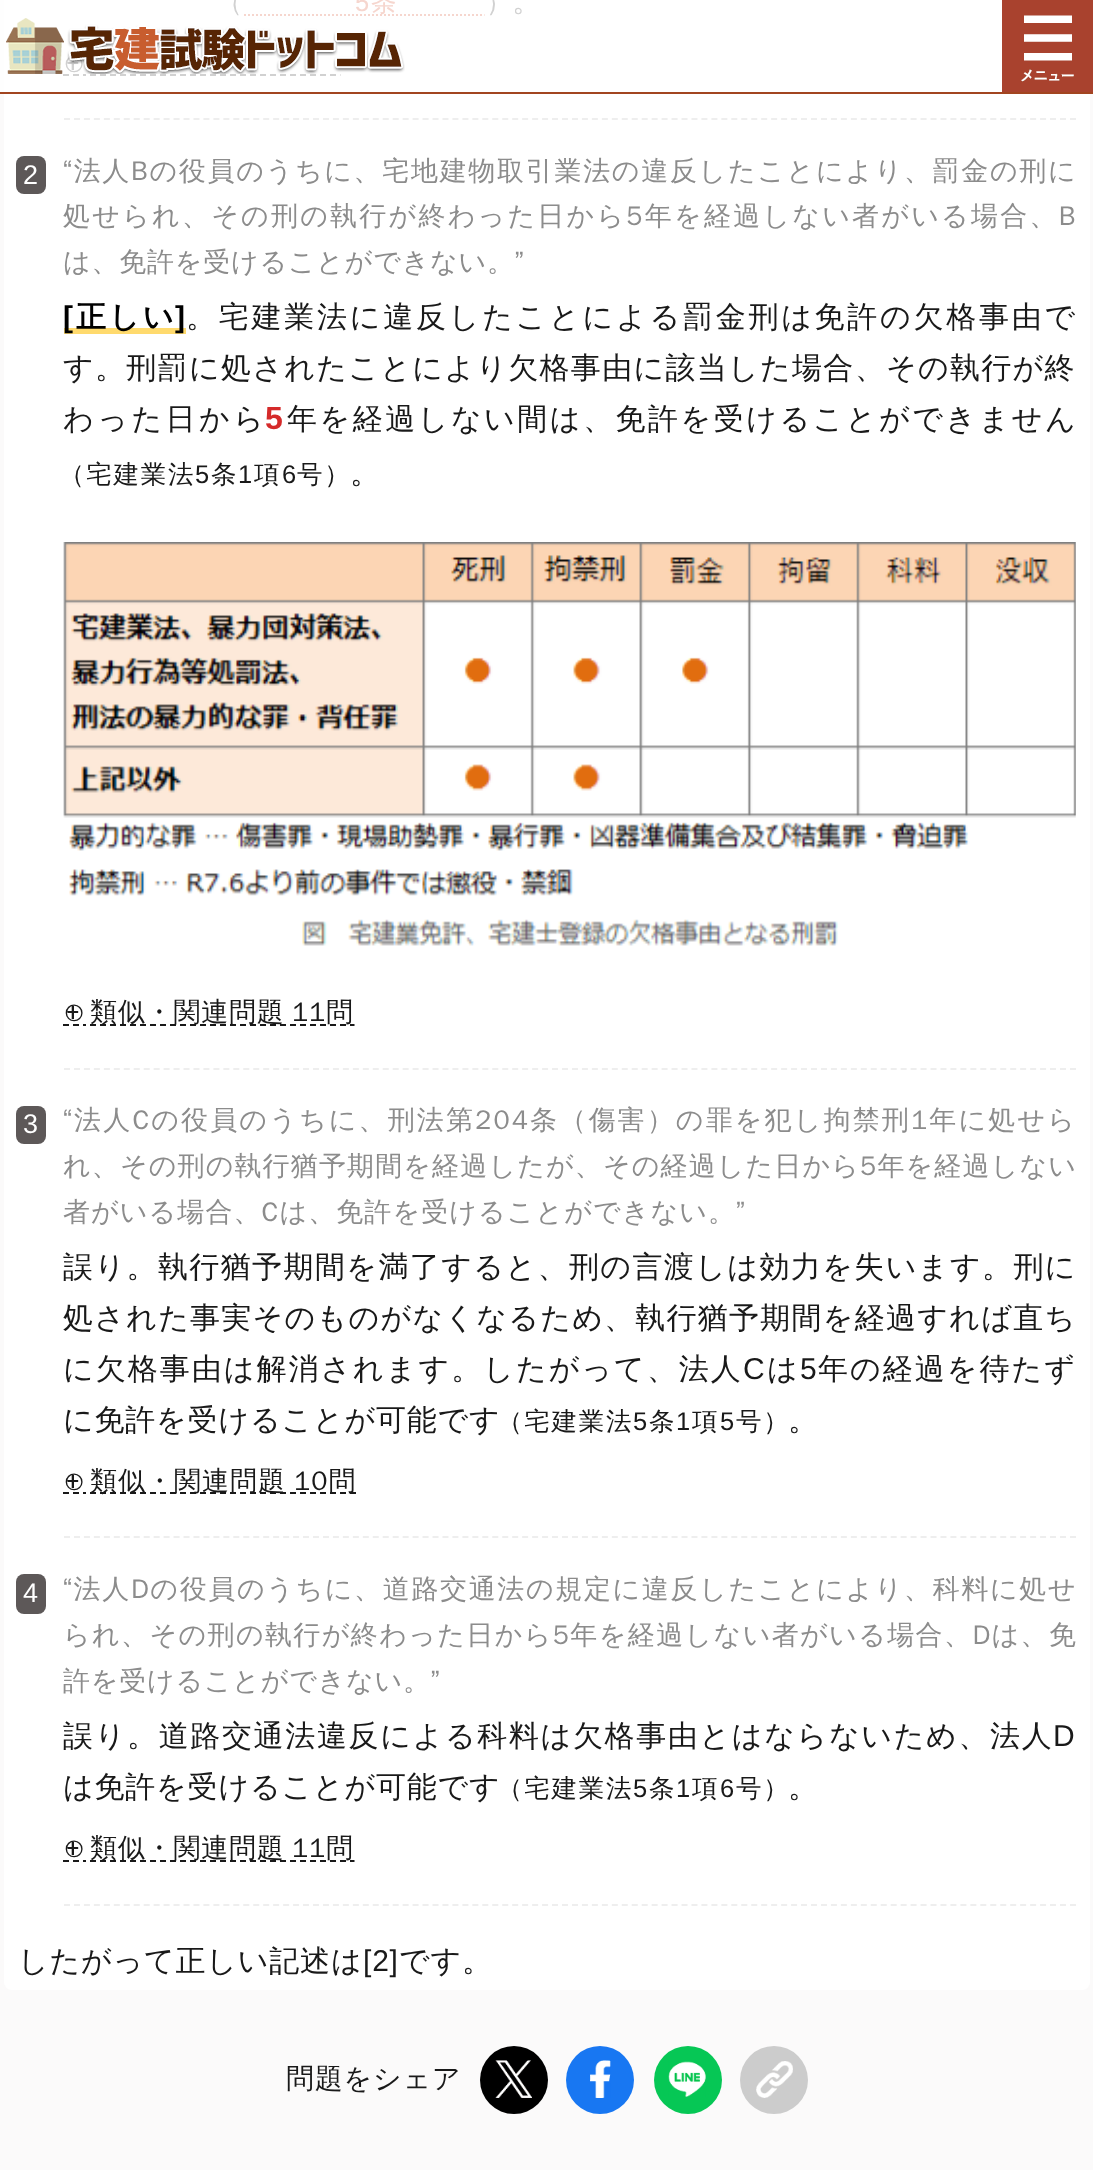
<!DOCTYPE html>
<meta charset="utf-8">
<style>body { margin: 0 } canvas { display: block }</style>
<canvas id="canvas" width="1093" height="2170"></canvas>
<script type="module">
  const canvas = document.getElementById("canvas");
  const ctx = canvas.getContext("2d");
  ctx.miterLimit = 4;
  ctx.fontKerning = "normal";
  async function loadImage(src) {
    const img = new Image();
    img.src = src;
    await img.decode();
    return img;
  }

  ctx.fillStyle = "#fbfafa";
  ctx.fillRect(0, 0, 1093, 2170);
  ctx.fillStyle = "#ffffff";
  ctx.beginPath();
  ctx.roundRect(4, -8, 1086, 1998, 8);
  ctx.fill();
  ctx.fillStyle = "#a24520";
  ctx.fillRect(0, 92, 1093, 2);
  ctx.letterSpacing = "0.8px";
  ctx.font = "500 28px WenQuanYi Zen Hei";
  ctx.fillStyle = "#d1d1d1";
  ctx.fillText("⊕", 63, 72);
  ctx.drawImage(await loadImage("img1.png"), 6, 18, 399, 56);
  ctx.drawImage(await loadImage("img2.png"), 1008, 6, 80, 80);
  ctx.strokeStyle = "#a9422e";
  ctx.lineWidth = 6;
  ctx.strokeRect(1005, 3, 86, 86);
  ctx.fillStyle = "#fefefe";
  ctx.fillRect(0, 0, 4, 92);
  ctx.beginPath();
  ctx.moveTo(64, 119);
  ctx.lineTo(1076, 119);
  ctx.strokeStyle = "#eeeeee";
  ctx.lineWidth = 2;
  ctx.setLineDash([6, 3.96]);
  ctx.stroke();
  ctx.letterSpacing = "0px";
  ctx.font = "500 25.5px WenQuanYi Zen Hei";
  ctx.fillStyle = "#d1d1d1";
  ctx.fillText("（", 217, 11);
  ctx.letterSpacing = "2px";
  ctx.font = "25.5px Liberation Sans";
  ctx.fillStyle = "#f6d6ce";
  ctx.fillText("5", 355, 11);
  ctx.beginPath();
  ctx.moveTo(244, 15);
  ctx.lineTo(484.5, 15);
  ctx.strokeStyle = "#f6d6ce";
  ctx.setLineDash([2, 2]);
  ctx.stroke();
  ctx.font = "500 25.5px WenQuanYi Zen Hei";
  ctx.fillText("条", 371, 11);
  ctx.letterSpacing = "0px";
  ctx.fillStyle = "#d1d1d1";
  ctx.fillText("）", 486, 11);
  ctx.letterSpacing = "0.8px";
  ctx.font = "500 30px WenQuanYi Zen Hei";
  ctx.fillText("。", 512, 11);
  ctx.beginPath();
  ctx.moveTo(63, 75);
  ctx.lineTo(69, 75);
  ctx.moveTo(73, 75);
  ctx.lineTo(79, 75);
  ctx.moveTo(83, 75);
  ctx.lineTo(86, 75);
  ctx.strokeStyle = "#d1d1d1";
  ctx.setLineDash([]);
  ctx.stroke();
  ctx.beginPath();
  ctx.moveTo(90, 75);
  ctx.lineTo(340.5, 75);
  ctx.setLineDash([6, 4]);
  ctx.stroke();
  ctx.beginPath();
  ctx.moveTo(64, 1069);
  ctx.lineTo(1076, 1069);
  ctx.strokeStyle = "#eeeeee";
  ctx.setLineDash([6, 3.96]);
  ctx.stroke();
  ctx.fillStyle = "#5d5858";
  ctx.beginPath();
  ctx.roundRect(16, 156, 30, 38, 8);
  ctx.fill();
  ctx.font = "27px Liberation Sans";
  ctx.fillStyle = "#ffffff";
  ctx.fillText("2", 23, 184);
  ctx.letterSpacing = "1.7px";
  ctx.font = "500 27px WenQuanYi Zen Hei";
  ctx.fillStyle = "#8c8c8c";
  ctx.fillText("“法人Bの役員のうちに、宅地建物取引業法の違反したことにより、罰金の刑に", 63, 180);
  ctx.letterSpacing = "2.25px";
  ctx.fillText("処せられ、その刑の執行が終わった日から5年を経過しない者がいる場合、B", 63, 225);
  ctx.letterSpacing = "0.8px";
  ctx.fillText("は、免許を受けることができない。”", 63, 271);
  ctx.fillStyle = "#ffda6d";
  ctx.fillRect(64, 328, 122, 6);
  ctx.letterSpacing = "3px";
  ctx.font = "bold 30px Liberation Sans";
  ctx.fillStyle = "#000000";
  ctx.fillText("[", 63, 327);
  ctx.font = "bold 30px WenQuanYi Zen Hei";
  ctx.fillText("正しい", 76, 327);
  ctx.font = "bold 30px Liberation Sans";
  ctx.fillText("]", 175, 327);
  ctx.letterSpacing = "2.75px";
  ctx.font = "500 30px WenQuanYi Zen Hei";
  ctx.fillStyle = "#191919";
  ctx.fillText("。宅建業法に違反したことによる罰金刑は免許の欠格事由で", 186, 327);
  ctx.letterSpacing = "1.3px";
  ctx.fillText("す。刑罰に処されたことにより欠格事由に該当した場合、その執行が終", 63, 378);
  ctx.letterSpacing = "3.5px";
  ctx.fillText("わった日から", 63, 429);
  ctx.letterSpacing = "0.8px";
  ctx.font = "bold 32px Liberation Sans";
  ctx.fillStyle = "#d52a2a";
  ctx.fillText("5", 265, 429);
  ctx.letterSpacing = "2.5px";
  ctx.font = "500 30px WenQuanYi Zen Hei";
  ctx.fillStyle = "#191919";
  ctx.fillText("年を経過しない間は、免許を受けることができません", 287, 429);
  ctx.letterSpacing = "1.75px";
  ctx.font = "500 25.5px WenQuanYi Zen Hei";
  ctx.fillText("（宅建業法", 59, 483);
  ctx.font = "25.5px Liberation Sans";
  ctx.fillText("5", 195, 483);
  ctx.font = "500 25.5px WenQuanYi Zen Hei";
  ctx.fillText("条", 211, 483);
  ctx.font = "25.5px Liberation Sans";
  ctx.fillText("1", 238, 483);
  ctx.font = "500 25.5px WenQuanYi Zen Hei";
  ctx.fillText("項", 254, 483);
  ctx.font = "25.5px Liberation Sans";
  ctx.fillText("6", 282, 483);
  ctx.font = "500 25.5px WenQuanYi Zen Hei";
  ctx.fillText("号）", 297, 483);
  ctx.letterSpacing = "0.8px";
  ctx.font = "500 30px WenQuanYi Zen Hei";
  ctx.fillText("。", 350, 483);
  ctx.drawImage(await loadImage("img3.png"), 63, 542, 1013, 404);
  ctx.font = "500 28px WenQuanYi Zen Hei";
  ctx.fillText("⊕", 63, 1021);
  ctx.beginPath();
  ctx.moveTo(63, 1025);
  ctx.lineTo(69, 1025);
  ctx.moveTo(73, 1025);
  ctx.lineTo(79, 1025);
  ctx.moveTo(83, 1025);
  ctx.lineTo(86, 1025);
  ctx.strokeStyle = "#191919";
  ctx.setLineDash([]);
  ctx.stroke();
  ctx.beginPath();
  ctx.moveTo(90, 1025);
  ctx.lineTo(354.5, 1025);
  ctx.setLineDash([6, 4]);
  ctx.stroke();
  ctx.font = "500 27px WenQuanYi Zen Hei";
  ctx.fillText("類似・関連問題", 90, 1021);
  ctx.fillText("11問", 292, 1021);
  ctx.beginPath();
  ctx.moveTo(64, 1537);
  ctx.lineTo(1076, 1537);
  ctx.strokeStyle = "#eeeeee";
  ctx.setLineDash([6, 3.96]);
  ctx.stroke();
  ctx.fillStyle = "#5d5858";
  ctx.beginPath();
  ctx.roundRect(16, 1106, 30, 38, 8);
  ctx.fill();
  ctx.font = "27px Liberation Sans";
  ctx.fillStyle = "#ffffff";
  ctx.fillText("3", 23, 1133);
  ctx.letterSpacing = "2.15px";
  ctx.font = "500 27px WenQuanYi Zen Hei";
  ctx.fillStyle = "#8c8c8c";
  ctx.fillText("“法人Cの役員のうちに、刑法第204条（傷害）の罪を犯し拘禁刑1年に処せら", 63, 1129);
  ctx.letterSpacing = "1.15px";
  ctx.fillText("れ、その刑の執行猶予期間を経過したが、その経過した日から5年を経過しない", 63, 1175);
  ctx.letterSpacing = "1.1px";
  ctx.fillText("者がいる場合、Cは、免許を受けることができない。”", 63, 1221);
  ctx.letterSpacing = "1.4px";
  ctx.font = "500 30px WenQuanYi Zen Hei";
  ctx.fillStyle = "#191919";
  ctx.fillText("誤り。執行猶予期間を満了すると、刑の言渡しは効力を失います。刑に", 63, 1277);
  ctx.letterSpacing = "1.25px";
  ctx.fillText("処された事実そのものがなくなるため、執行猶予期間を経過すれば直ち", 63, 1328);
  ctx.letterSpacing = "2px";
  ctx.fillText("に欠格事由は解消されます。したがって、法人", 63, 1379);
  ctx.font = "30px Liberation Sans";
  ctx.fillText("C", 743, 1379);
  ctx.font = "500 30px WenQuanYi Zen Hei";
  ctx.fillText("は", 767, 1379);
  ctx.font = "30px Liberation Sans";
  ctx.fillText("5", 800, 1379);
  ctx.font = "500 30px WenQuanYi Zen Hei";
  ctx.fillText("年の経過を待たず", 818, 1379);
  ctx.letterSpacing = "0.8px";
  ctx.fillText("に免許を受けることが可能です", 63, 1430);
  ctx.letterSpacing = "1.75px";
  ctx.font = "500 25.5px WenQuanYi Zen Hei";
  ctx.fillText("（宅建業法", 497, 1430);
  ctx.font = "25.5px Liberation Sans";
  ctx.fillText("5", 633, 1430);
  ctx.font = "500 25.5px WenQuanYi Zen Hei";
  ctx.fillText("条", 649, 1430);
  ctx.font = "25.5px Liberation Sans";
  ctx.fillText("1", 676, 1430);
  ctx.font = "500 25.5px WenQuanYi Zen Hei";
  ctx.fillText("項", 692, 1430);
  ctx.font = "25.5px Liberation Sans";
  ctx.fillText("5", 720, 1430);
  ctx.font = "500 25.5px WenQuanYi Zen Hei";
  ctx.fillText("号）", 736, 1430);
  ctx.letterSpacing = "0.8px";
  ctx.font = "500 30px WenQuanYi Zen Hei";
  ctx.fillText("。", 788, 1430);
  ctx.font = "500 28px WenQuanYi Zen Hei";
  ctx.fillText("⊕", 63, 1490);
  ctx.beginPath();
  ctx.moveTo(63, 1493);
  ctx.lineTo(69, 1493);
  ctx.moveTo(73, 1493);
  ctx.lineTo(79, 1493);
  ctx.moveTo(83, 1493);
  ctx.lineTo(86, 1493);
  ctx.strokeStyle = "#191919";
  ctx.setLineDash([]);
  ctx.stroke();
  ctx.beginPath();
  ctx.moveTo(90, 1493);
  ctx.lineTo(356.5, 1493);
  ctx.setLineDash([6, 4]);
  ctx.stroke();
  ctx.letterSpacing = "1px";
  ctx.font = "500 27px WenQuanYi Zen Hei";
  ctx.fillText("類似・関連問題", 90, 1490);
  ctx.fillText("10問", 294, 1490);
  ctx.beginPath();
  ctx.moveTo(64, 1905);
  ctx.lineTo(1076, 1905);
  ctx.strokeStyle = "#eeeeee";
  ctx.setLineDash([6, 3.96]);
  ctx.stroke();
  ctx.fillStyle = "#5d5858";
  ctx.beginPath();
  ctx.roundRect(16, 1574, 30, 40, 8);
  ctx.fill();
  ctx.letterSpacing = "0.8px";
  ctx.font = "27px Liberation Sans";
  ctx.fillStyle = "#ffffff";
  ctx.fillText("4", 23, 1602);
  ctx.letterSpacing = "1.65px";
  ctx.font = "500 27px WenQuanYi Zen Hei";
  ctx.fillStyle = "#8c8c8c";
  ctx.fillText("“法人Dの役員のうちに、道路交通法の規定に違反したことにより、科料に処せ", 63, 1598);
  ctx.letterSpacing = "1.4px";
  ctx.fillText("られ、その刑の執行が終わった日から5年を経過しない者がいる場合、Dは、免", 63, 1644);
  ctx.letterSpacing = "0.8px";
  ctx.fillText("許を受けることができない。”", 63, 1690);
  ctx.letterSpacing = "1.65px";
  ctx.font = "500 30px WenQuanYi Zen Hei";
  ctx.fillStyle = "#191919";
  ctx.fillText("誤り。道路交通法違反による科料は欠格事由とはならないため、法人", 63, 1746);
  ctx.font = "30px Liberation Sans";
  ctx.fillText("D", 1053, 1746);
  ctx.letterSpacing = "0.8px";
  ctx.font = "500 30px WenQuanYi Zen Hei";
  ctx.fillText("は免許を受けることが可能です", 63, 1797);
  ctx.letterSpacing = "1.75px";
  ctx.font = "500 25.5px WenQuanYi Zen Hei";
  ctx.fillText("（宅建業法", 497, 1797);
  ctx.font = "25.5px Liberation Sans";
  ctx.fillText("5", 633, 1797);
  ctx.font = "500 25.5px WenQuanYi Zen Hei";
  ctx.fillText("条", 649, 1797);
  ctx.font = "25.5px Liberation Sans";
  ctx.fillText("1", 676, 1797);
  ctx.font = "500 25.5px WenQuanYi Zen Hei";
  ctx.fillText("項", 692, 1797);
  ctx.font = "25.5px Liberation Sans";
  ctx.fillText("6", 720, 1797);
  ctx.font = "500 25.5px WenQuanYi Zen Hei";
  ctx.fillText("号）", 736, 1797);
  ctx.letterSpacing = "0.8px";
  ctx.font = "500 30px WenQuanYi Zen Hei";
  ctx.fillText("。", 788, 1797);
  ctx.font = "500 28px WenQuanYi Zen Hei";
  ctx.fillText("⊕", 63, 1857);
  ctx.beginPath();
  ctx.moveTo(63, 1861);
  ctx.lineTo(69, 1861);
  ctx.moveTo(73, 1861);
  ctx.lineTo(79, 1861);
  ctx.moveTo(83, 1861);
  ctx.lineTo(86, 1861);
  ctx.strokeStyle = "#191919";
  ctx.setLineDash([]);
  ctx.stroke();
  ctx.beginPath();
  ctx.moveTo(90, 1861);
  ctx.lineTo(354.5, 1861);
  ctx.setLineDash([6, 4]);
  ctx.stroke();
  ctx.font = "500 27px WenQuanYi Zen Hei";
  ctx.fillText("類似・関連問題", 90, 1857);
  ctx.fillText("11問", 292, 1857);
  ctx.font = "500 30px WenQuanYi Zen Hei";
  ctx.fillText("したがって正しい記述は", 18, 1971);
  ctx.font = "30px Liberation Sans";
  ctx.fillText("[2]", 363, 1971);
  ctx.font = "500 30px WenQuanYi Zen Hei";
  ctx.fillText("です。", 399, 1971);
  ctx.font = "500 28px WenQuanYi Zen Hei";
  ctx.fillText("問題をシェア", 286, 2088);
  ctx.fillStyle = "#000000";
  ctx.beginPath();
  ctx.arc(514, 2080, 34, 0, Math.PI * 2);
  ctx.fill();
  ctx.drawImage(await loadImage("img4.png"), 495, 2060, 37, 38);
  ctx.fillStyle = "#1877f2";
  ctx.beginPath();
  ctx.arc(600, 2080, 34, 0, Math.PI * 2);
  ctx.fill();
  ctx.drawImage(await loadImage("img5.png"), 590, 2060, 21, 38);
  ctx.fillStyle = "#06c755";
  ctx.beginPath();
  ctx.arc(688, 2080, 34, 0, Math.PI * 2);
  ctx.fill();
  ctx.drawImage(await loadImage("img6.png"), 668, 2061, 38, 36);
  ctx.fillStyle = "#cccccc";
  ctx.beginPath();
  ctx.arc(774, 2080, 34, 0, Math.PI * 2);
  ctx.fill();
  ctx.drawImage(await loadImage("img7.png"), 756, 2061, 37, 37);
</script>
